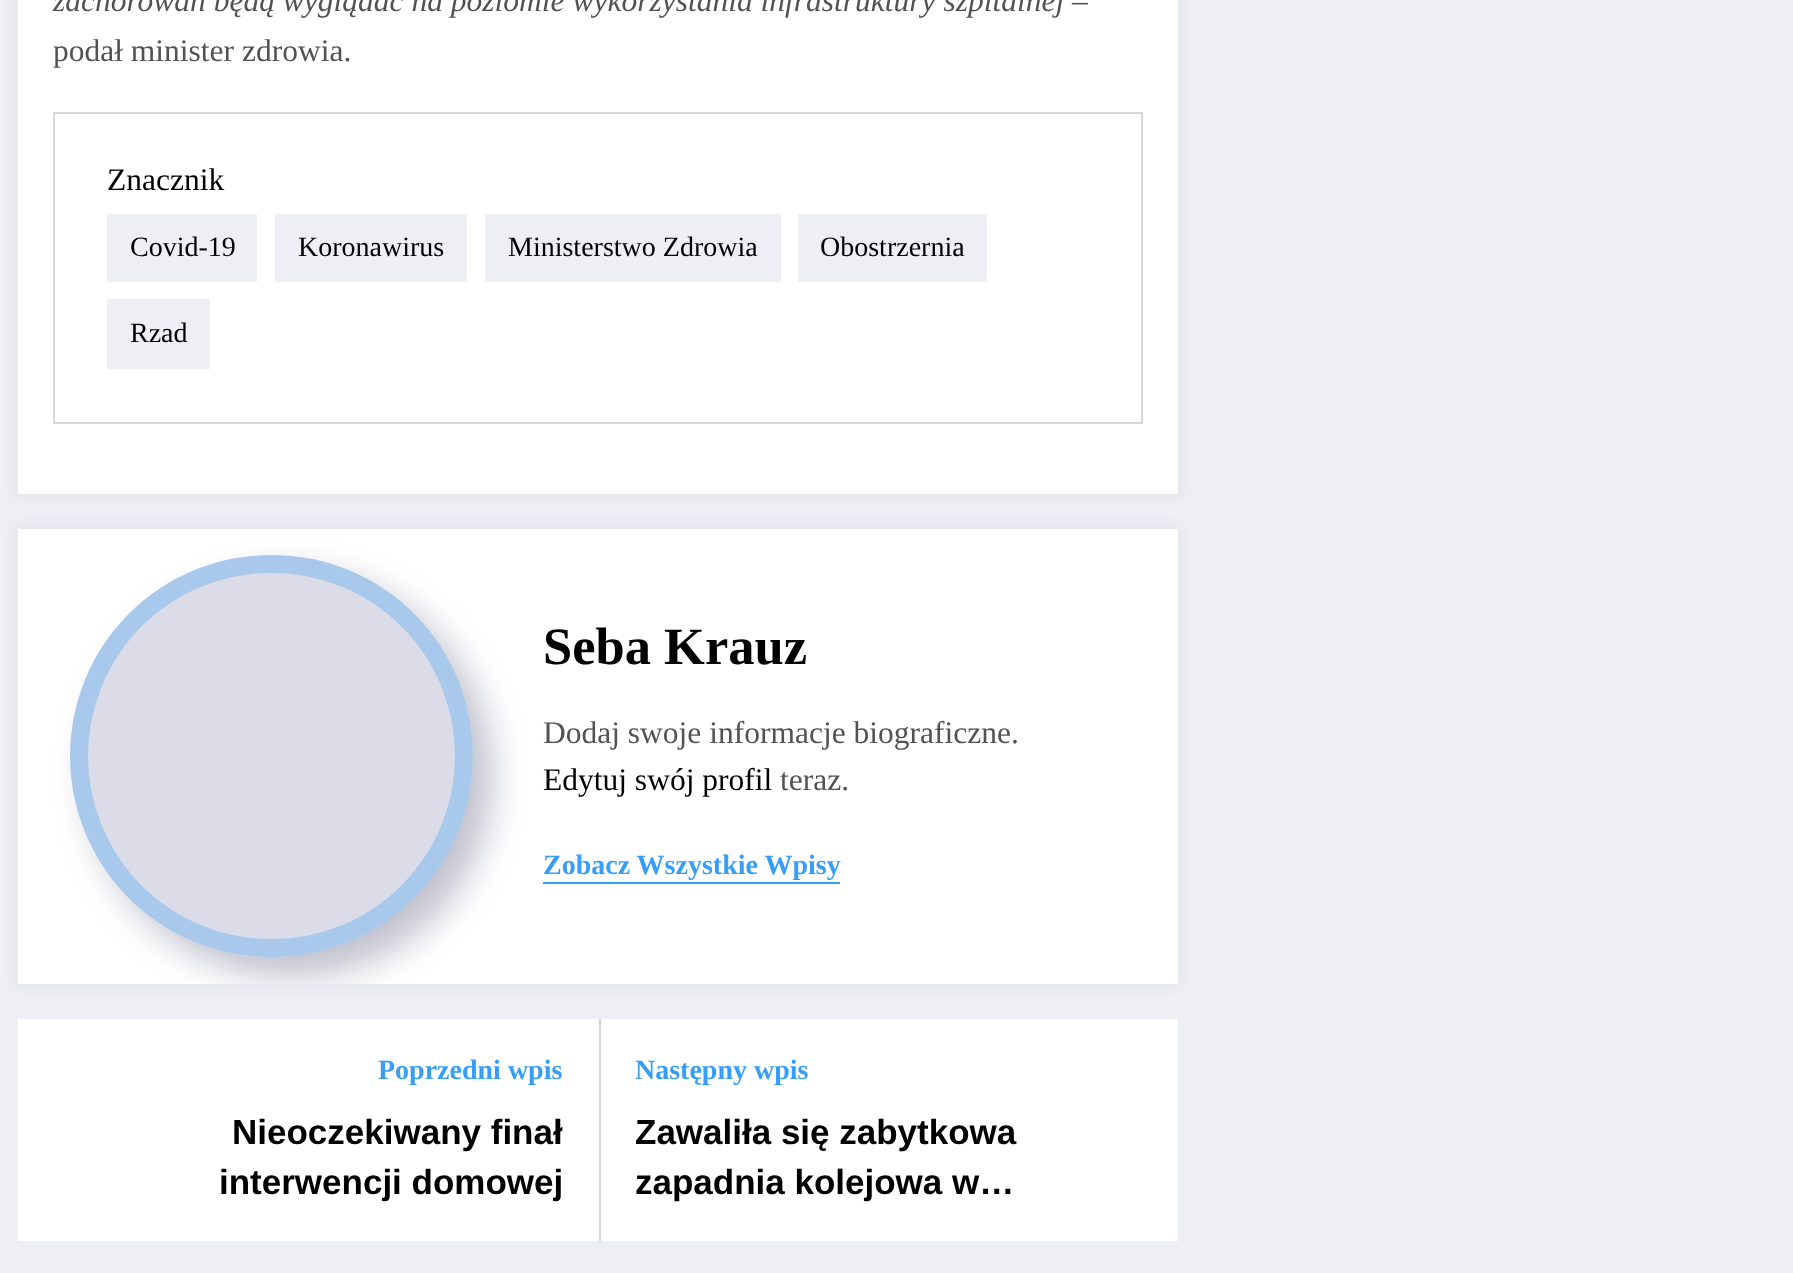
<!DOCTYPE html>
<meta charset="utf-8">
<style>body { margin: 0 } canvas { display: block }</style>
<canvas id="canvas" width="1793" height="1273"></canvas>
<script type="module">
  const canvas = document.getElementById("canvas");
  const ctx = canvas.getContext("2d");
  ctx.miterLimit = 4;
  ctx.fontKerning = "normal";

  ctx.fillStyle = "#eeeef5";
  ctx.fillRect(0, 0, 1793, 1273);
  ctx.fillStyle = "rgba(23, 23, 35, 0.05)";
  ctx.filter = "blur(7px)";
  ctx.beginPath();
  ctx.rect(14, -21, 1167, 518);
  ctx.fill();
  ctx.filter = "none";
  ctx.fillStyle = "#ffffff";
  ctx.fillRect(18, 0, 1160, 494);
  ctx.font = "italic 31.5px Liberation Serif";
  ctx.fillStyle = "#525252";
  ctx.fillText("zachorowań będą wyglądać na poziomie wykorzystania infrastruktury szpitalnej", 53, 11);
  ctx.font = "31.5px Liberation Serif";
  ctx.fillText("–", 1072, 11);
  ctx.fillText("podał minister zdrowia.", 53, 61);
  ctx.strokeStyle = "#d7d7d7";
  ctx.lineWidth = 2;
  ctx.strokeRect(54, 113, 1088, 310);
  ctx.fillStyle = "#000000";
  ctx.fillText("Znacznik", 107, 190);
  ctx.fillStyle = "#eeeff4";
  ctx.fillRect(107, 214, 150, 68);
  ctx.font = "28px Liberation Serif";
  ctx.fillStyle = "#000000";
  ctx.fillText("Covid-19", 130, 256);
  ctx.fillStyle = "#eeeff4";
  ctx.fillRect(275, 214, 192, 68);
  ctx.fillStyle = "#000000";
  ctx.fillText("Koronawirus", 298, 256);
  ctx.fillStyle = "#eeeff4";
  ctx.fillRect(485, 214, 296, 68);
  ctx.fillStyle = "#000000";
  ctx.fillText("Ministerstwo Zdrowia", 508, 256);
  ctx.fillStyle = "#eeeff4";
  ctx.fillRect(798, 214, 189, 68);
  ctx.fillStyle = "#000000";
  ctx.fillText("Obostrzernia", 820, 256);
  ctx.fillStyle = "#eeeff4";
  ctx.fillRect(107, 299, 103, 70);
  ctx.fillStyle = "#000000";
  ctx.fillText("Rzad", 130, 342);
  ctx.fillStyle = "rgba(23, 23, 35, 0.05)";
  ctx.filter = "blur(7px)";
  ctx.beginPath();
  ctx.rect(14, 525, 1167, 462);
  ctx.fill();
  ctx.filter = "none";
  ctx.fillStyle = "#ffffff";
  ctx.fillRect(18, 529, 1160, 455);
  ctx.fillStyle = "#369ef6";
  ctx.fillRect(543, 882, 297, 2);
  ctx.fillStyle = "#ffffff";
  ctx.fillRect(18, 1019, 1160, 222);
  ctx.save();
  ctx.beginPath();
  ctx.rect(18, 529, 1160, 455);
  ctx.clip();
  ctx.fillStyle = "rgba(4, 8, 54, 0.25)";
  ctx.filter = "blur(17.5px)";
  ctx.beginPath();
  ctx.roundRect(89, 574, 403, 403, 201.5);
  ctx.fill();
  ctx.filter = "none";
  ctx.restore();
  ctx.fillStyle = "#dcdce8";
  ctx.beginPath();
  ctx.roundRect(70, 555, 403, 402, 201);
  ctx.fill();
  ctx.beginPath();
  ctx.roundRect(79, 564, 385, 384, 192);
  ctx.strokeStyle = "rgba(54, 158, 246, 0.3)";
  ctx.lineWidth = 18;
  ctx.stroke();
  ctx.font = "bold 52.5px Liberation Serif";
  ctx.fillStyle = "#000000";
  ctx.fillText("Seba Krauz", 543, 664);
  ctx.font = "31.5px Liberation Serif";
  ctx.fillStyle = "#525252";
  ctx.fillText("Dodaj swoje informacje biograficzne.", 543, 743);
  ctx.fillStyle = "#000000";
  ctx.fillText("Edytuj swój profil", 543, 790);
  ctx.fillStyle = "#525252";
  ctx.fillText("teraz.", 780, 790);
  ctx.font = "bold 28px Liberation Serif";
  ctx.fillStyle = "#369ef6";
  ctx.fillText("Zobacz Wszystkie Wpisy", 543, 874);
  ctx.fillText("Poprzedni wpis", 378, 1079);
  ctx.font = "bold 35px Liberation Sans";
  ctx.fillStyle = "#000000";
  ctx.fillText("Nieoczekiwany finał", 232, 1144);
  ctx.fillText("interwencji domowej", 219, 1194);
  ctx.fillStyle = "#d7d7d7";
  ctx.fillRect(599, 1019, 2, 222);
  ctx.font = "bold 28px Liberation Serif";
  ctx.fillStyle = "#369ef6";
  ctx.fillText("Następny wpis", 635, 1079);
  ctx.font = "bold 35px Liberation Sans";
  ctx.fillStyle = "#000000";
  ctx.fillText("Zawaliła się zabytkowa", 635, 1144);
  ctx.fillText("zapadnia kolejowa w…", 635, 1194);
</script>
